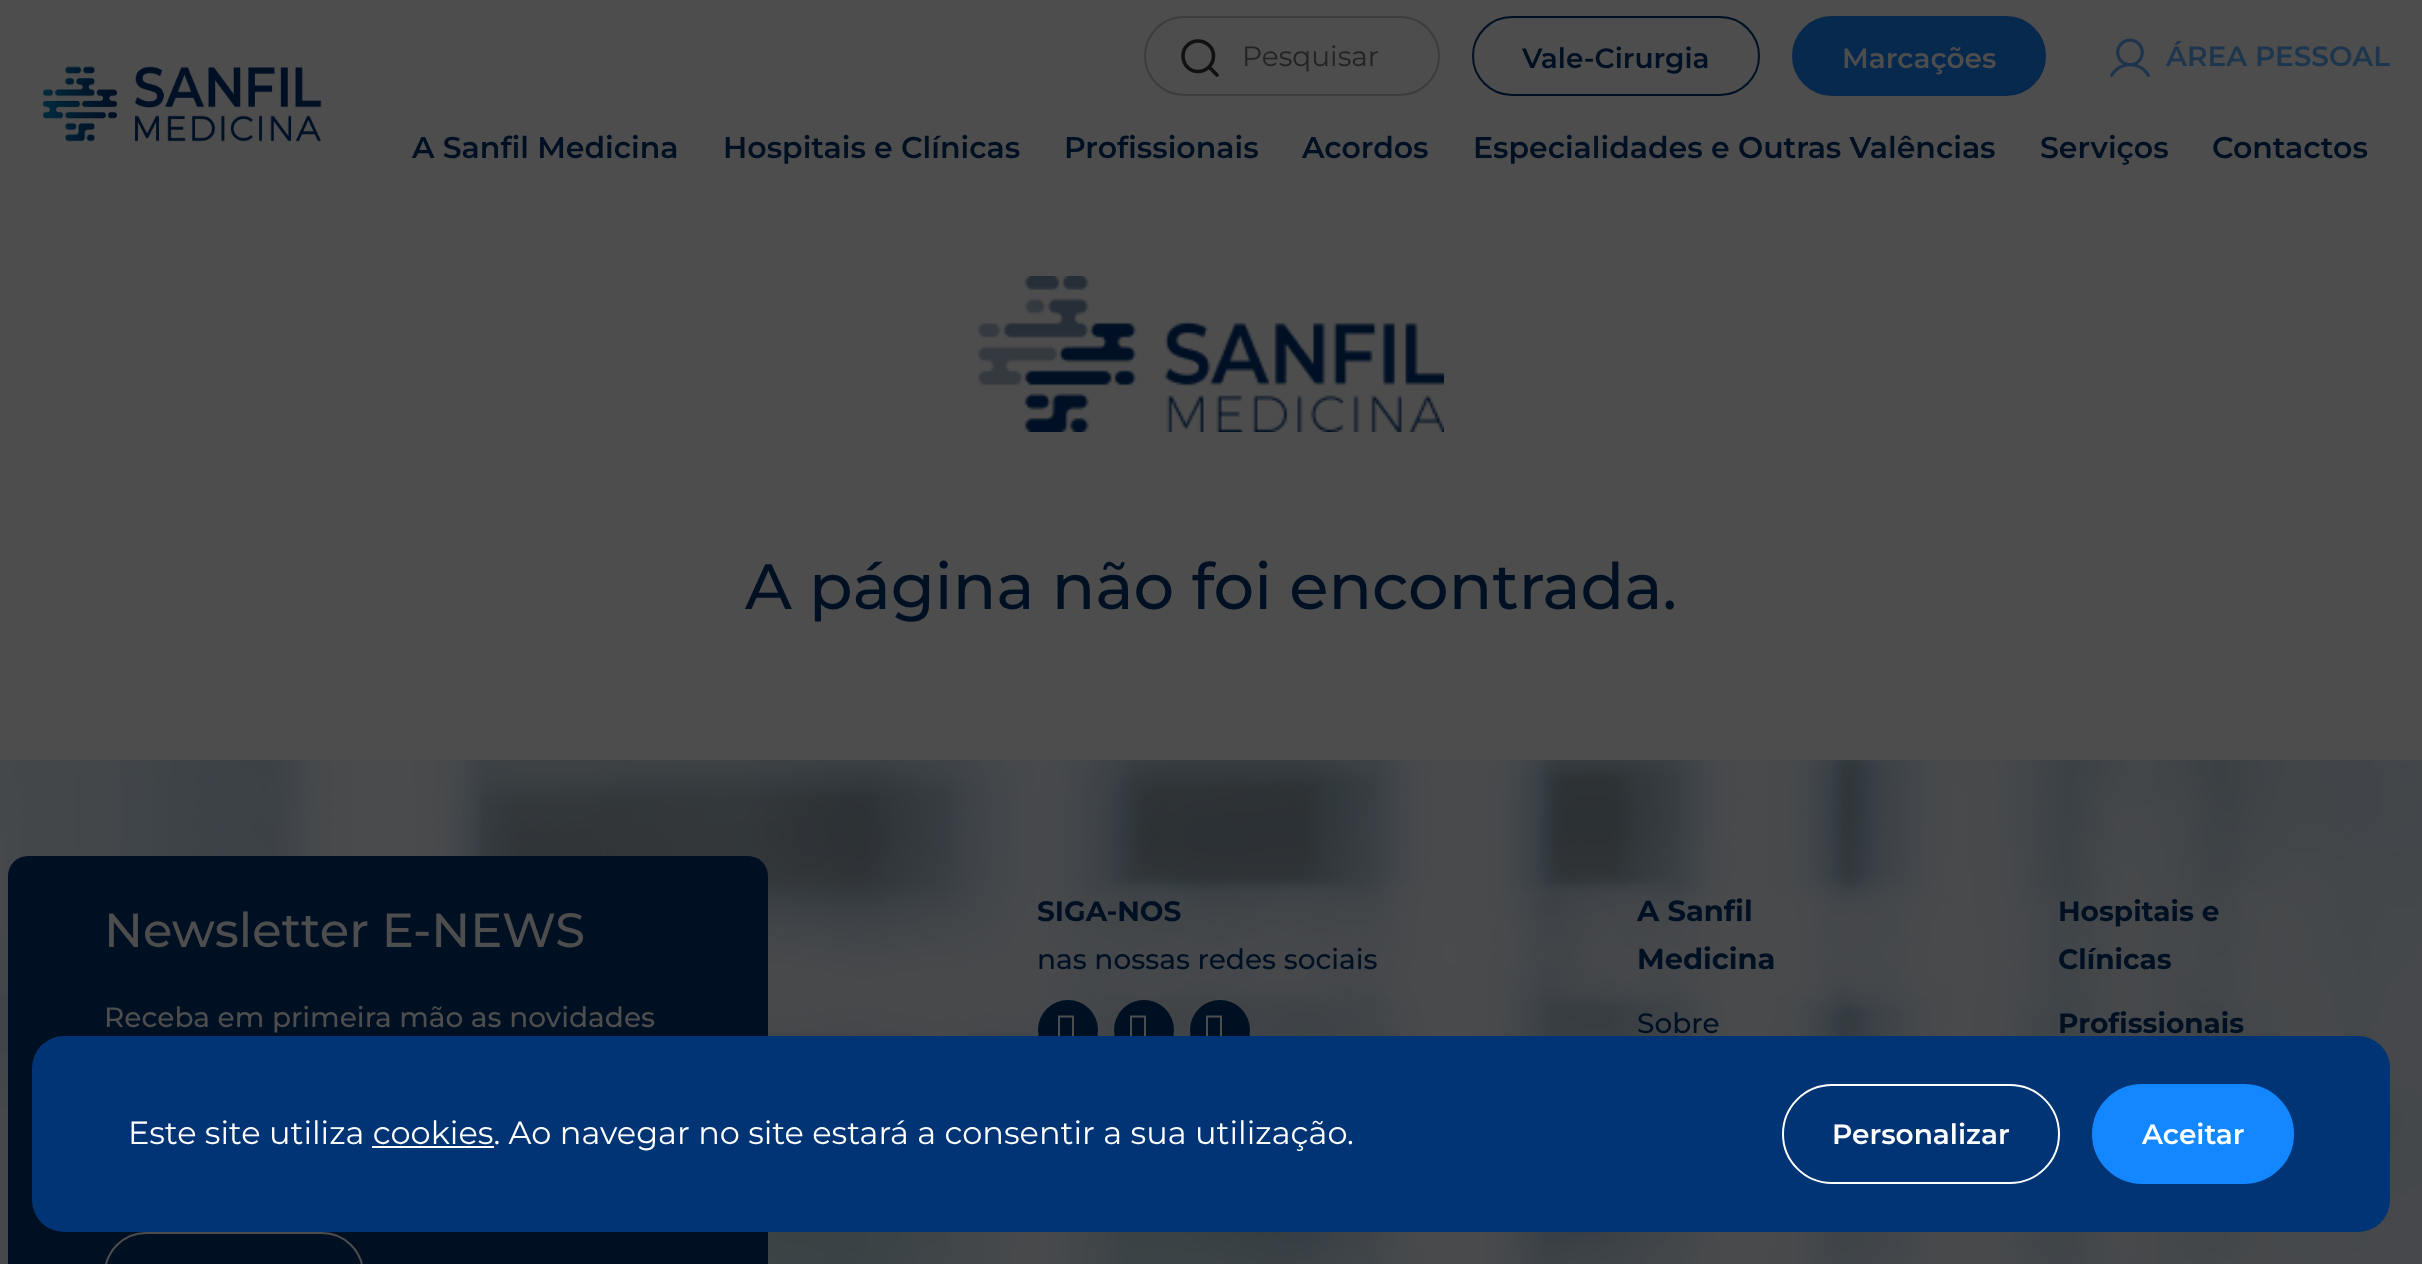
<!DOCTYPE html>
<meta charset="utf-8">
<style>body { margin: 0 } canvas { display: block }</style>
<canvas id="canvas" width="2422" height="1264"></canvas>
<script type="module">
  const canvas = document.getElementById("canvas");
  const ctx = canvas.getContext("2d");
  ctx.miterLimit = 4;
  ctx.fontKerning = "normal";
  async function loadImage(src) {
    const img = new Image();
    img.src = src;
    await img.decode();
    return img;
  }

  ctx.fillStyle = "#4d4d4d";
  ctx.fillRect(0, 0, 2422, 1264);
  ctx.drawImage(await loadImage("img1.png"), 43, 66, 279, 76);
  ctx.beginPath();
  ctx.roundRect(1145, 17, 294, 78, 39);
  ctx.strokeStyle = "#3c3c3c";
  ctx.lineWidth = 2;
  ctx.stroke();
  ctx.beginPath();
  ctx.moveTo(1217, 75);
  ctx.lineTo(1209, 67);
  ctx.moveTo(1213.5, 56);
  ctx.bezierCurveTo(1213.5, 64.5, 1206.5, 71.5, 1198, 71.5);
  ctx.bezierCurveTo(1189.5, 71.5, 1183, 64.5, 1183, 56);
  ctx.bezierCurveTo(1183, 47.5, 1189.5, 41, 1198, 41);
  ctx.bezierCurveTo(1206.5, 41, 1213.5, 47.5, 1213.5, 56);
  ctx.closePath();
  ctx.strokeStyle = "#111111";
  ctx.lineWidth = 3.6;
  ctx.lineCap = "round";
  ctx.lineJoin = "round";
  ctx.stroke();
  ctx.font = "28px Montserrat";
  ctx.fillStyle = "#232323";
  ctx.fillText("Pesquisar", 1242, 66);
  ctx.beginPath();
  ctx.roundRect(1473, 17, 286, 78, 39);
  ctx.strokeStyle = "#001023";
  ctx.lineWidth = 2;
  ctx.lineJoin = "miter";
  ctx.stroke();
  ctx.font = "600 28px Montserrat";
  ctx.fillStyle = "#001023";
  ctx.fillText("Vale-Cirurgia", 1522, 68);
  ctx.fillStyle = "#06294d";
  ctx.beginPath();
  ctx.roundRect(1793, 17, 252, 78, 39);
  ctx.fill();
  ctx.strokeStyle = "#06294d";
  ctx.stroke();
  ctx.fillStyle = "#4d4d4d";
  ctx.fillText("Marcações", 1842, 68);
  ctx.drawImage(await loadImage("img2.png"), 2110, 38, 40, 39);
  ctx.fillStyle = "#1d354d";
  ctx.fillText("ÁREA PESSOAL", 2166, 66);
  ctx.font = "600 30px Montserrat";
  ctx.fillStyle = "#001023";
  ctx.fillText("A Sanfil Medicina", 412, 158);
  ctx.fillText("Hospitais e Clínicas", 723, 158);
  ctx.fillText("Profissionais", 1064, 158);
  ctx.fillText("Acordos", 1302, 158);
  ctx.fillText("Especialidades e Outras Valências", 1473, 158);
  ctx.fillText("Serviços", 2040, 158);
  ctx.fillText("Contactos", 2212, 158);
  ctx.drawImage(await loadImage("img3.png"), 978, 276, 466, 156);
  ctx.font = "500 64px Montserrat";
  ctx.fillText("A página não foi encontrada.", 745, 609);
  ctx.drawImage(await loadImage("img4.png"), 0, 760, 2422, 504);
  ctx.beginPath();
  ctx.roundRect(8, 856, 760, 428, 20);
  ctx.fill();
  ctx.font = "500 48px Montserrat";
  ctx.fillStyle = "#4d4d4d";
  ctx.fillText("Newsletter E-NEWS", 104, 947);
  ctx.font = "500 28px Montserrat";
  ctx.fillText("Receba em primeira mão as novidades", 104, 1027);
  ctx.beginPath();
  ctx.roundRect(105, 1233, 258, 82, 49);
  ctx.strokeStyle = "#4d4d4d";
  ctx.stroke();
  ctx.font = "bold 28px Montserrat";
  ctx.fillStyle = "#001023";
  ctx.fillText("SIGA-NOS", 1037, 921);
  ctx.font = "500 28px Montserrat";
  ctx.fillText("nas nossas redes sociais", 1037, 969);
  ctx.beginPath();
  ctx.arc(1068, 1030, 30, 0, Math.PI * 2);
  ctx.fill();
  ctx.fillStyle = "#4d4d4d";
  ctx.beginPath();
  ctx.moveTo(1058, 1044);
  ctx.lineTo(1058, 1015.5);
  ctx.lineTo(1074, 1015.5);
  ctx.lineTo(1074, 1044);
  ctx.closePath();
  ctx.moveTo(1060, 1042);
  ctx.lineTo(1072, 1042);
  ctx.lineTo(1072, 1017.5);
  ctx.lineTo(1060, 1017.5);
  ctx.closePath();
  ctx.fill();
  ctx.fillStyle = "#001023";
  ctx.beginPath();
  ctx.arc(1144, 1030, 30, 0, Math.PI * 2);
  ctx.fill();
  ctx.fillStyle = "#4d4d4d";
  ctx.beginPath();
  ctx.moveTo(1130, 1044);
  ctx.lineTo(1130, 1015.5);
  ctx.lineTo(1146, 1015.5);
  ctx.lineTo(1146, 1044);
  ctx.closePath();
  ctx.moveTo(1132, 1042);
  ctx.lineTo(1144, 1042);
  ctx.lineTo(1144, 1017.5);
  ctx.lineTo(1132, 1017.5);
  ctx.closePath();
  ctx.fill();
  ctx.fillStyle = "#001023";
  ctx.beginPath();
  ctx.arc(1220, 1030, 30, 0, Math.PI * 2);
  ctx.fill();
  ctx.fillStyle = "#4d4d4d";
  ctx.beginPath();
  ctx.moveTo(1206, 1044);
  ctx.lineTo(1206, 1015.5);
  ctx.lineTo(1222, 1015.5);
  ctx.lineTo(1222, 1044);
  ctx.closePath();
  ctx.moveTo(1208, 1042);
  ctx.lineTo(1220, 1042);
  ctx.lineTo(1220, 1017.5);
  ctx.lineTo(1208, 1017.5);
  ctx.closePath();
  ctx.fill();
  ctx.font = "bold 29px Montserrat";
  ctx.fillStyle = "#001023";
  ctx.fillText("A Sanfil", 1637, 921);
  ctx.fillText("Medicina", 1637, 969);
  ctx.font = "500 28px Montserrat";
  ctx.fillText("Sobre", 1637, 1033);
  ctx.font = "bold 28px Montserrat";
  ctx.fillText("Hospitais e", 2058, 921);
  ctx.fillText("Clínicas", 2058, 969);
  ctx.fillText("Profissionais", 2058, 1033);
  ctx.fillStyle = "#003474";
  ctx.beginPath();
  ctx.roundRect(32, 1036, 2358, 196, 32);
  ctx.fill();
  ctx.font = "32px Montserrat";
  ctx.fillStyle = "#ffffff";
  ctx.fillText("Este site utiliza cookies. Ao navegar no site estará a consentir a sua utilização.", 128, 1144);
  ctx.fillRect(372, 1146, 122, 2);
  ctx.beginPath();
  ctx.roundRect(1783, 1085, 276, 98, 49);
  ctx.strokeStyle = "#ffffff";
  ctx.stroke();
  ctx.font = "600 28px Montserrat";
  ctx.fillText("Personalizar", 1832, 1144);
  ctx.fillStyle = "#1387ff";
  ctx.beginPath();
  ctx.roundRect(2093, 1085, 200, 98, 49);
  ctx.fill();
  ctx.strokeStyle = "#1387ff";
  ctx.stroke();
  ctx.fillStyle = "#ffffff";
  ctx.fillText("Aceitar", 2142, 1144);
</script>
